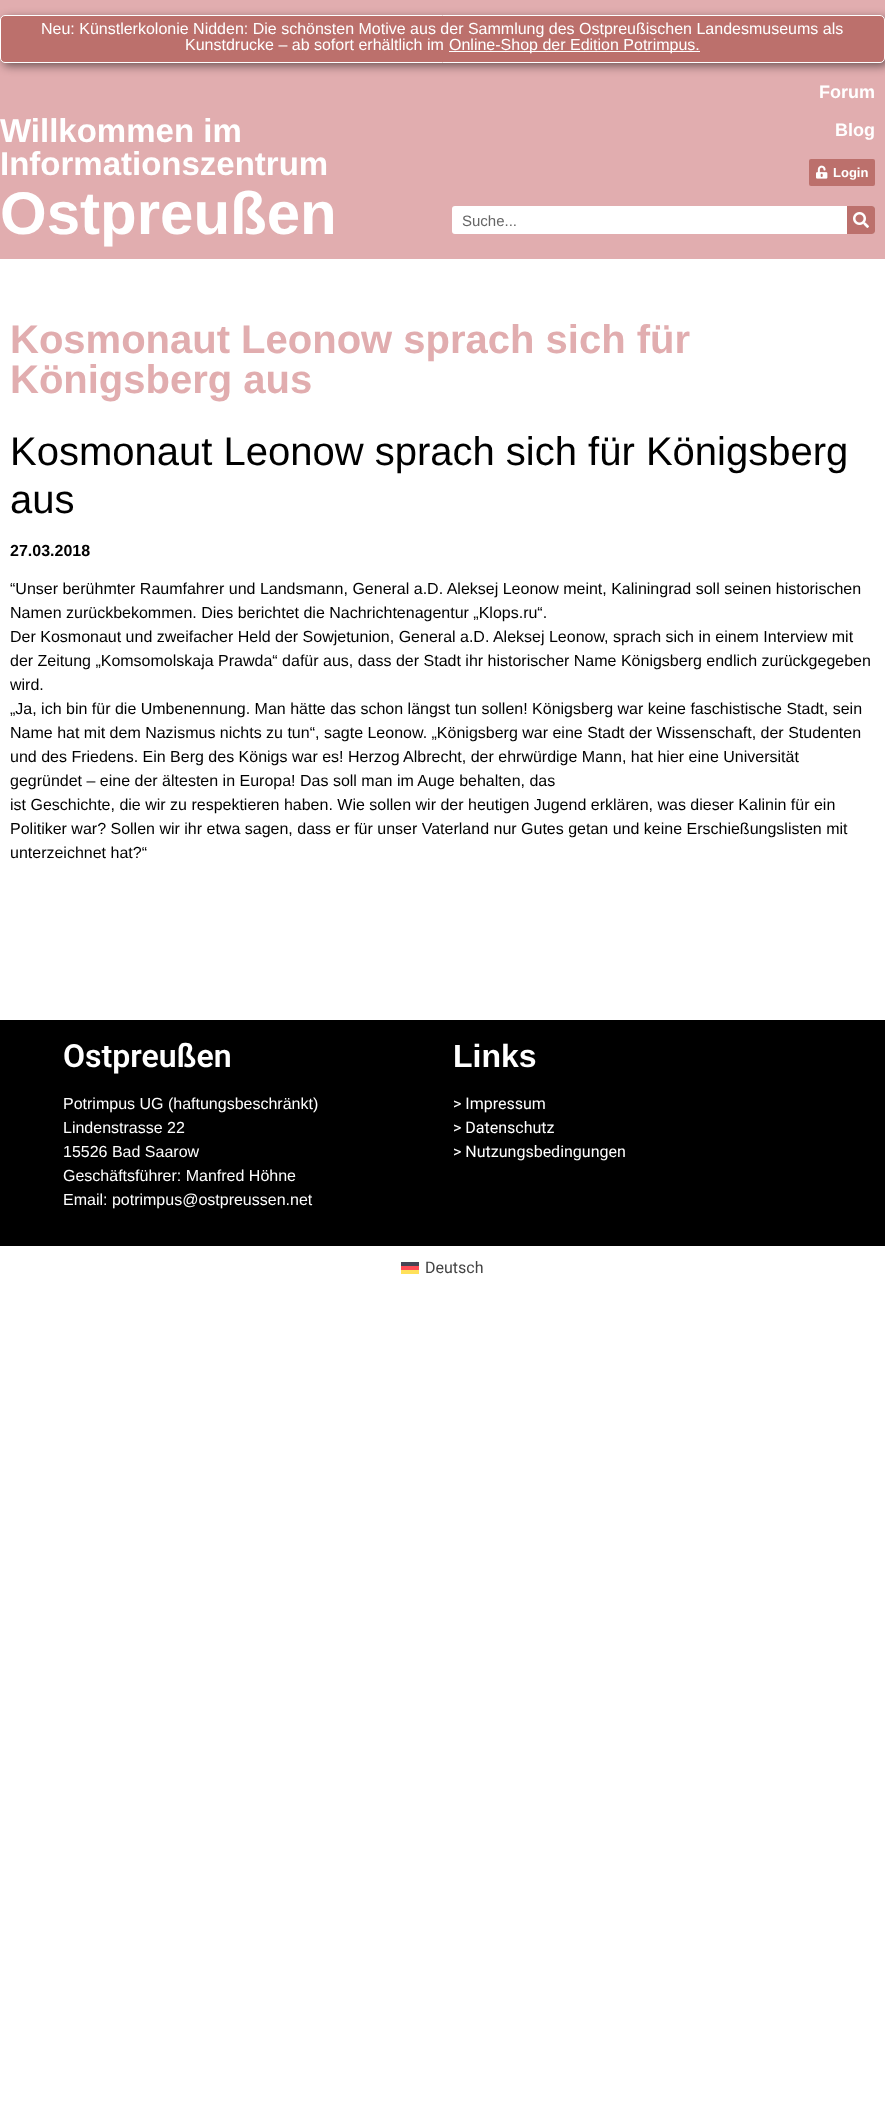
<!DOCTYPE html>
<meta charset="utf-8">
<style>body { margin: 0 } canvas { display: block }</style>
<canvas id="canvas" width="885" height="2118"></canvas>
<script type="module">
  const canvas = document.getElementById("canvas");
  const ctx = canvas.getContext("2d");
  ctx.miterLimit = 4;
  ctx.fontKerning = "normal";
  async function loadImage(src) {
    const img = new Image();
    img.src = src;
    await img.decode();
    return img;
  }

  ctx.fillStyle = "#ffffff";
  ctx.fillRect(0, 0, 885, 2118);
  ctx.fillStyle = "#e1adaf";
  ctx.fillRect(0, 0, 885, 259);
  ctx.fillStyle = "rgba(0, 0, 0, 0.5)";
  ctx.filter = "blur(5px)";
  ctx.beginPath();
  ctx.roundRect(3, 18, 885, 48, 5);
  ctx.fill();
  ctx.filter = "none";
  ctx.fillStyle = "#bc706c";
  ctx.beginPath();
  ctx.roundRect(0.5, 15.5, 884, 47, 4.5);
  ctx.fill();
  ctx.strokeStyle = "#ffffff";
  ctx.stroke();
  ctx.font = "16px Liberation Sans";
  ctx.fillStyle = "#ffffff";
  ctx.fillText("Neu: Künstlerkolonie Nidden: Die schönsten Motive aus der Sammlung des Ostpreußischen Landesmuseums als", 41, 34);
  ctx.fillText("Kunstdrucke – ab sofort erhältlich im", 185, 50);
  ctx.fillRect(449, 51, 251, 1);
  ctx.fillText("Online-Shop der Edition Potrimpus.", 449, 50);
  ctx.font = "bold 33px Liberation Sans";
  ctx.fillText("Willkommen im", 0, 142);
  ctx.fillText("Informationszentrum", 0, 175);
  ctx.font = "bold 60px Liberation Sans";
  ctx.fillText("Ostpreußen", 0, 234);
  ctx.font = "bold 18px Liberation Sans";
  ctx.fillText("Forum", 819, 98);
  ctx.fillText("Blog", 835, 136);
  ctx.fillStyle = "#bc706c";
  ctx.beginPath();
  ctx.roundRect(809, 159, 66, 27, 2);
  ctx.fill();
  ctx.drawImage(await loadImage("img1.png"), 816, 165, 12, 14);
  ctx.font = "bold 13px Liberation Sans";
  ctx.fillStyle = "#ffffff";
  ctx.fillText("Login", 833, 177);
  ctx.beginPath();
  ctx.roundRect(452, 206, 423, 28, 3);
  ctx.fill();
  ctx.font = "15px Liberation Sans";
  ctx.fillStyle = "#666666";
  ctx.fillText("Suche...", 462, 226);
  ctx.fillStyle = "#bc706c";
  ctx.beginPath();
  ctx.roundRect(847, 206, 28, 28, [0, 3, 3, 0]);
  ctx.fill();
  ctx.drawImage(await loadImage("img2.png"), 853, 212, 16, 16);
  ctx.font = "bold 40px Liberation Sans";
  ctx.fillStyle = "#e1adaf";
  ctx.fillText("Kosmonaut Leonow sprach sich für", 10, 353);
  ctx.fillText("Königsberg aus", 10, 393);
  ctx.font = "40px Liberation Sans";
  ctx.fillStyle = "#000000";
  ctx.fillText("Kosmonaut Leonow sprach sich für Königsberg", 10, 465);
  ctx.fillText("aus", 10, 513);
  ctx.font = "bold 16px Liberation Sans";
  ctx.fillText("27.03.2018", 10, 556);
  ctx.font = "16px Liberation Sans";
  ctx.fillText("“Unser berühmter Raumfahrer und Landsmann, General a.D. Aleksej Leonow meint, Kaliningrad soll seinen historischen", 10, 594);
  ctx.fillText("Namen zurückbekommen. Dies berichtet die Nachrichtenagentur „Klops.ru“.", 10, 618);
  ctx.fillText("Der Kosmonaut und zweifacher Held der Sowjetunion, General a.D. Aleksej Leonow, sprach sich in einem Interview mit", 10, 642);
  ctx.fillText("der Zeitung „Komsomolskaja Prawda“ dafür aus, dass der Stadt ihr historischer Name Königsberg endlich zurückgegeben", 10, 666);
  ctx.fillText("wird.", 10, 690);
  ctx.fillText("„Ja, ich bin für die Umbenennung. Man hätte das schon längst tun sollen! Königsberg war keine faschistische Stadt, sein", 10, 714);
  ctx.fillText("Name hat mit dem Nazismus nichts zu tun“, sagte Leonow. „Königsberg war eine Stadt der Wissenschaft, der Studenten", 10, 738);
  ctx.fillText("und des Friedens. Ein Berg des Königs war es! Herzog Albrecht, der ehrwürdige Mann, hat hier eine Universität", 10, 762);
  ctx.fillText("gegründet – eine der ältesten in Europa! Das soll man im Auge behalten, das", 10, 786);
  ctx.fillText("ist Geschichte, die wir zu respektieren haben. Wie sollen wir der heutigen Jugend erklären, was dieser Kalinin für ein", 10, 810);
  ctx.fillText("Politiker war? Sollen wir ihr etwa sagen, dass er für unser Vaterland nur Gutes getan und keine Erschießungslisten mit", 10, 834);
  ctx.fillText("unterzeichnet hat?“", 10, 858);
  ctx.fillRect(0, 1020, 885, 226);
  ctx.font = "600 32px Roboto";
  ctx.fillStyle = "#ffffff";
  ctx.fillText("Ostpreußen", 63, 1067);
  ctx.font = "16px Liberation Sans";
  ctx.fillText("Potrimpus UG (haftungsbeschränkt)", 63, 1109);
  ctx.fillText("Lindenstrasse 22", 63, 1133);
  ctx.fillText("15526 Bad Saarow", 63, 1157);
  ctx.fillText("Geschäftsführer: Manfred Höhne", 63, 1181);
  ctx.fillText("Email: potrimpus@ostpreussen.net", 63, 1205);
  ctx.font = "bold 32px Liberation Sans";
  ctx.fillText("Links", 453, 1067);
  ctx.font = "16px Roboto";
  ctx.fillText("> Impressum", 453, 1109);
  ctx.fillText("> Datenschutz", 453, 1133);
  ctx.fillText("> Nutzungsbedingungen", 453, 1157);
  ctx.fillStyle = "#464655";
  ctx.fillRect(401, 1262, 18, 4);
  ctx.fillStyle = "#444444";
  ctx.fillText("Deutsch", 425, 1273);
  ctx.fillStyle = "#ff4b55";
  ctx.fillRect(401, 1266, 18, 4);
  ctx.fillStyle = "#ffe15a";
  ctx.fillRect(401, 1270, 18, 4);
</script>
